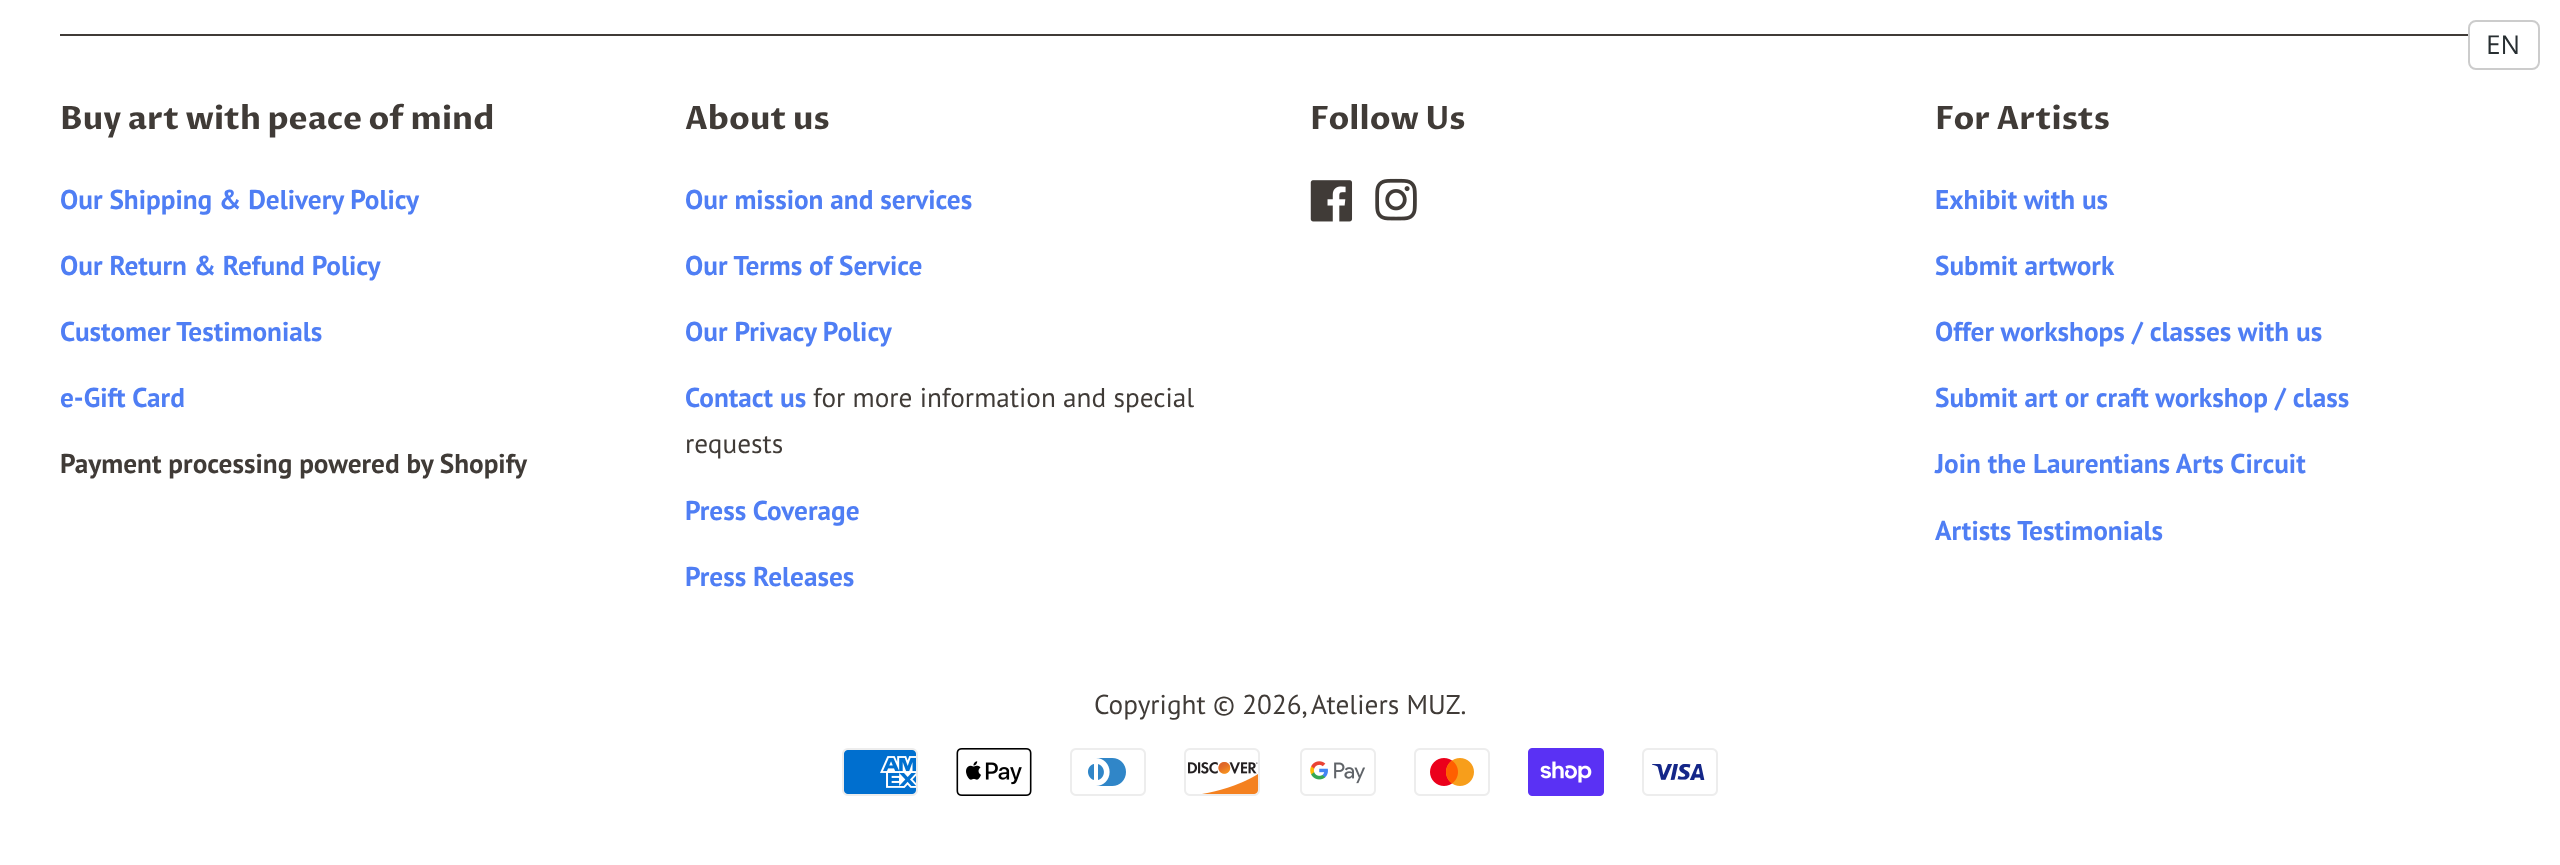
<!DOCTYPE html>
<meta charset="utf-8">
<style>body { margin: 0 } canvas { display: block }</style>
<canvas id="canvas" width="2560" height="865"></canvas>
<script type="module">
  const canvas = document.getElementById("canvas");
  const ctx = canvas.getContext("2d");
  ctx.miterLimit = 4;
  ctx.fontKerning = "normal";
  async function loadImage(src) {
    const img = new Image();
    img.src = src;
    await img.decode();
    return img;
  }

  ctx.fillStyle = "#ffffff";
  ctx.fillRect(0, 0, 2560, 865);
  ctx.fillStyle = "#403b37";
  ctx.fillRect(60, 34, 2408, 2);
  ctx.beginPath();
  ctx.roundRect(2469, 21, 70, 48, 7);
  ctx.strokeStyle = "#cccccc";
  ctx.lineWidth = 2;
  ctx.stroke();
  ctx.font = "26px Open Sans";
  ctx.fillStyle = "#272e31";
  ctx.fillText("EN", 2486, 54);
  ctx.font = "bold 32px Proza Libre";
  ctx.fillStyle = "#403b37";
  ctx.fillText("Buy art with peace of mind", 60, 129);
  ctx.font = "bold 27.25px PT Sans";
  ctx.fillStyle = "#4f7ef4";
  ctx.fillText("Our Shipping & Delivery Policy", 60, 209);
  ctx.fillText("Our Return & Refund Policy", 60, 275);
  ctx.fillText("Customer Testimonials", 60, 341);
  ctx.fillText("e-Gift Card", 60, 407);
  ctx.fillStyle = "#403b37";
  ctx.fillText("Payment processing powered by Shopify", 60, 473);
  ctx.font = "bold 32px Proza Libre";
  ctx.fillText("About us", 685, 129);
  ctx.font = "bold 27.25px PT Sans";
  ctx.fillStyle = "#4f7ef4";
  ctx.fillText("Our mission and services", 685, 209);
  ctx.fillText("Our Terms of Service", 685, 275);
  ctx.fillText("Our Privacy Policy", 685, 341);
  ctx.fillText("Contact us", 685, 407);
  ctx.font = "27.25px PT Sans";
  ctx.fillStyle = "#403b37";
  ctx.fillText("for more information and special", 813, 407);
  ctx.fillText("requests", 685, 453);
  ctx.font = "bold 27.25px PT Sans";
  ctx.fillStyle = "#4f7ef4";
  ctx.fillText("Press Coverage", 685, 520);
  ctx.fillText("Press Releases", 685, 586);
  ctx.font = "bold 32px Proza Libre";
  ctx.fillStyle = "#403b37";
  ctx.fillText("Follow Us", 1310, 129);
  ctx.drawImage(await loadImage("img1.png"), 1310, 180, 43, 42);
  ctx.drawImage(await loadImage("img2.png"), 1375, 178, 42, 43);
  ctx.fillText("For Artists", 1935, 129);
  ctx.font = "bold 27.25px PT Sans";
  ctx.fillStyle = "#4f7ef4";
  ctx.fillText("Exhibit with us", 1935, 209);
  ctx.fillText("Submit artwork", 1935, 275);
  ctx.fillText("Offer workshops / classes with us", 1935, 341);
  ctx.fillText("Submit art or craft workshop / class", 1935, 407);
  ctx.fillText("Join the Laurentians Arts Circuit", 1935, 473);
  ctx.fillText("Artists Testimonials", 1935, 540);
  ctx.font = "27.25px PT Sans";
  ctx.fillStyle = "#403b37";
  ctx.fillText("Copyright © 2026,", 1094, 714);
  ctx.fillText("Ateliers MUZ.", 1311, 714);
  ctx.drawImage(await loadImage("img3.png"), 842, 748, 76, 48);
  ctx.drawImage(await loadImage("img4.png"), 956, 748, 76, 48);
  ctx.drawImage(await loadImage("img5.png"), 1070, 748, 76, 48);
  ctx.drawImage(await loadImage("img6.png"), 1184, 748, 76, 48);
  ctx.drawImage(await loadImage("img7.png"), 1300, 748, 76, 48);
  ctx.drawImage(await loadImage("img8.png"), 1414, 748, 76, 48);
  ctx.drawImage(await loadImage("img9.png"), 1528, 748, 76, 48);
  ctx.drawImage(await loadImage("img10.png"), 1642, 748, 76, 48);
</script>
